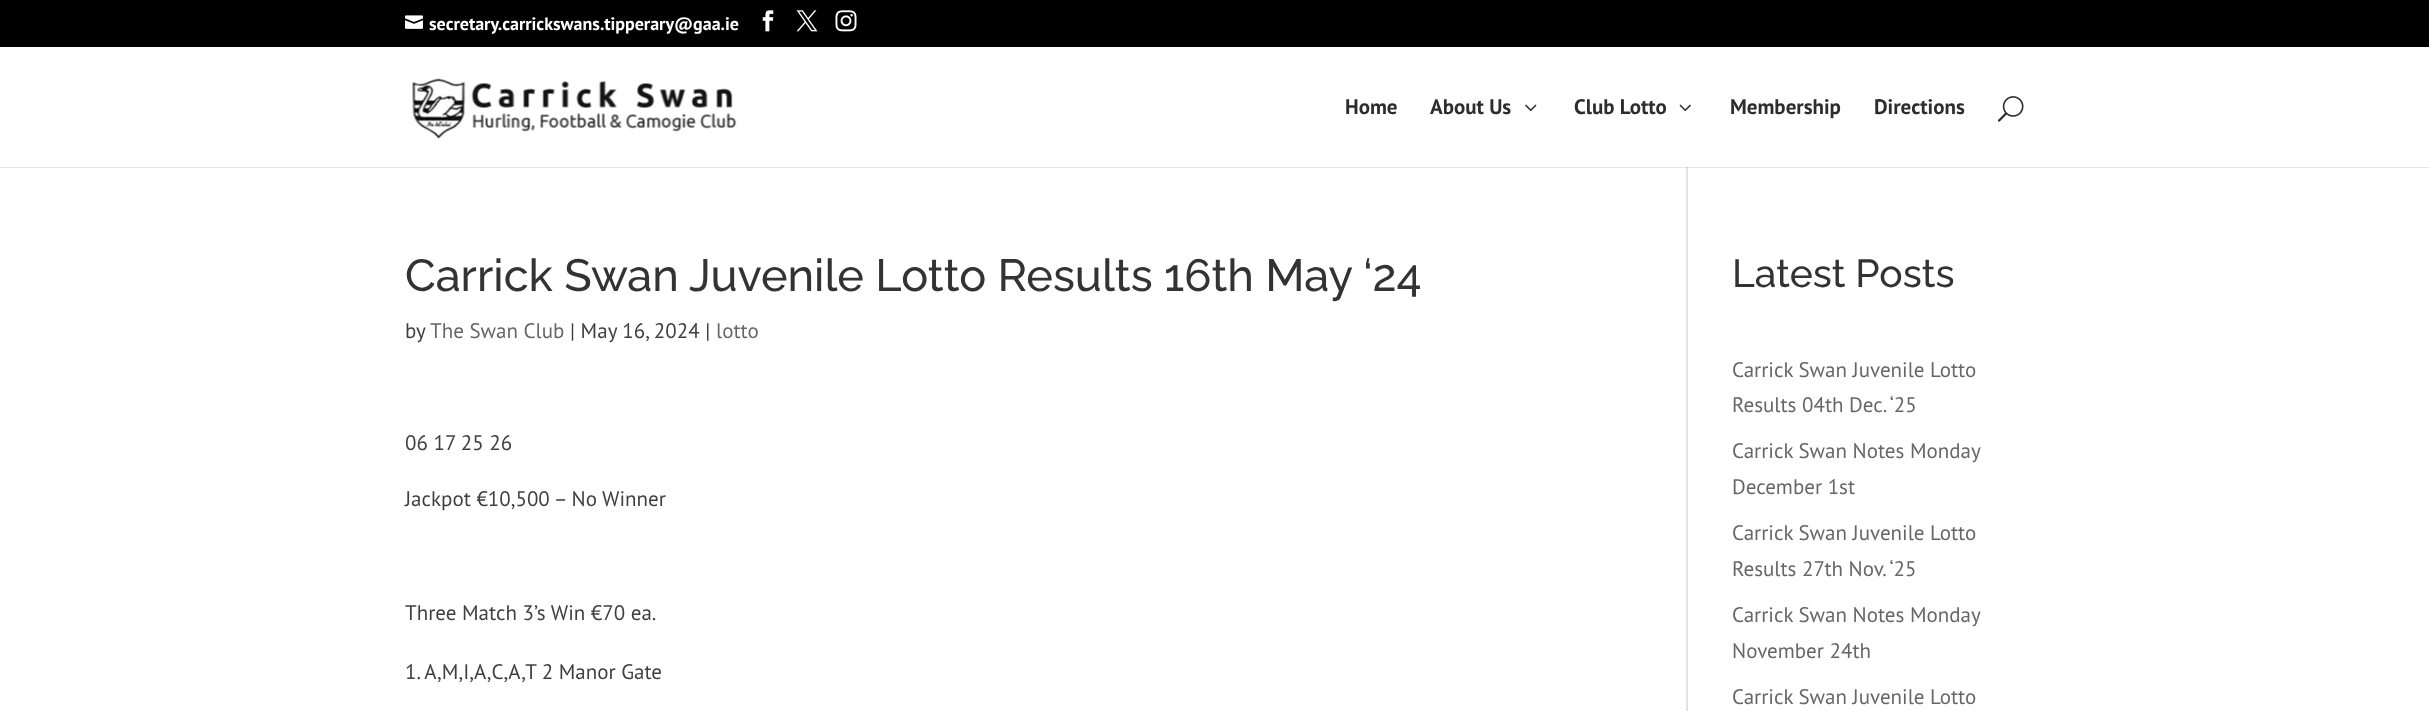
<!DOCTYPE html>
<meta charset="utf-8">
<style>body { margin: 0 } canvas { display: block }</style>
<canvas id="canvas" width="2429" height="711"></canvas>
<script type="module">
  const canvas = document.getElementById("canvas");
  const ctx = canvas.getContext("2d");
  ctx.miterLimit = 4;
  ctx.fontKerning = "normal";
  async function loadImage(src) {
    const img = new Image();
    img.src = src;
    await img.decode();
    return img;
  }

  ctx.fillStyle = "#ffffff";
  ctx.fillRect(0, 0, 2429, 711);
  ctx.fillStyle = "#e6e6e6";
  ctx.fillRect(0, 167, 2429, 1);
  ctx.fillStyle = "#000000";
  ctx.fillRect(0, 0, 2429, 47);
  ctx.drawImage(await loadImage("img1.png"), 405, 15, 18, 14);
  ctx.font = "bold 18px PT Sans";
  ctx.fillStyle = "#ffffff";
  ctx.fillText("secretary.carrickswans.tipperary@gaa.ie", 429, 30);
  ctx.drawImage(await loadImage("img2.png"), 762, 10, 12, 22);
  ctx.drawImage(await loadImage("img3.png"), 796, 10, 22, 22);
  ctx.drawImage(await loadImage("img4.png"), 835, 10, 22, 22);
  ctx.drawImage(await loadImage("img5.png"), 412, 78, 325, 61);
  ctx.font = "bold 21px PT Sans";
  ctx.fillStyle = "#2e2d2d";
  ctx.fillText("Home", 1345, 114);
  ctx.fillText("About Us", 1430, 114);
  ctx.drawImage(await loadImage("img6.png"), 1525, 104, 12, 7);
  ctx.fillText("Club Lotto", 1574, 114);
  ctx.drawImage(await loadImage("img7.png"), 1679, 104, 12, 7);
  ctx.fillText("Membership", 1730, 114);
  ctx.fillText("Directions", 1874, 114);
  ctx.drawImage(await loadImage("img8.png"), 1997, 96, 27, 26);
  ctx.fillStyle = "#e2e2e2";
  ctx.fillRect(1686, 167, 2, 544);
  ctx.fillStyle = "#cbcbcb";
  ctx.fillRect(1686, 167, 2, 1);
  ctx.font = "500 45px Raleway";
  ctx.fillStyle = "#333333";
  ctx.fillText("Carrick Swan Juvenile Lotto Results 16th May ‘24", 405, 291);
  ctx.font = "21px PT Sans";
  ctx.fillStyle = "#3f3f3f";
  ctx.fillText("by", 405, 338);
  ctx.fillStyle = "#666666";
  ctx.fillText("The Swan Club", 430, 338);
  ctx.fillStyle = "#3f3f3f";
  ctx.fillText("| May 16, 2024 |", 570, 338);
  ctx.fillStyle = "#666666";
  ctx.fillText("lotto", 716, 338);
  ctx.fillStyle = "#3f3f3f";
  ctx.fillText("06 17 25 26", 405, 450);
  ctx.fillText("Jackpot €10,500 – No Winner", 405, 506);
  ctx.fillText("Three Match 3’s Win €70 ea.", 405, 620);
  ctx.fillText("1. A,M,I,A,C,A,T 2 Manor Gate", 405, 679);
  ctx.font = "500 39px Raleway";
  ctx.fillStyle = "#333333";
  ctx.fillText("Latest Posts", 1732, 287);
  ctx.font = "21px PT Sans";
  ctx.fillStyle = "#666666";
  ctx.fillText("Carrick Swan Juvenile Lotto", 1732, 377);
  ctx.fillText("Results 04th Dec. ‘25", 1732, 412);
  ctx.fillText("Carrick Swan Notes Monday", 1732, 458);
  ctx.fillText("December 1st", 1732, 494);
  ctx.fillText("Carrick Swan Juvenile Lotto", 1732, 540);
  ctx.fillText("Results 27th Nov. ‘25", 1732, 576);
  ctx.fillText("Carrick Swan Notes Monday", 1732, 622);
  ctx.fillText("November 24th", 1732, 658);
  ctx.fillText("Carrick Swan Juvenile Lotto", 1732, 704);
</script>
